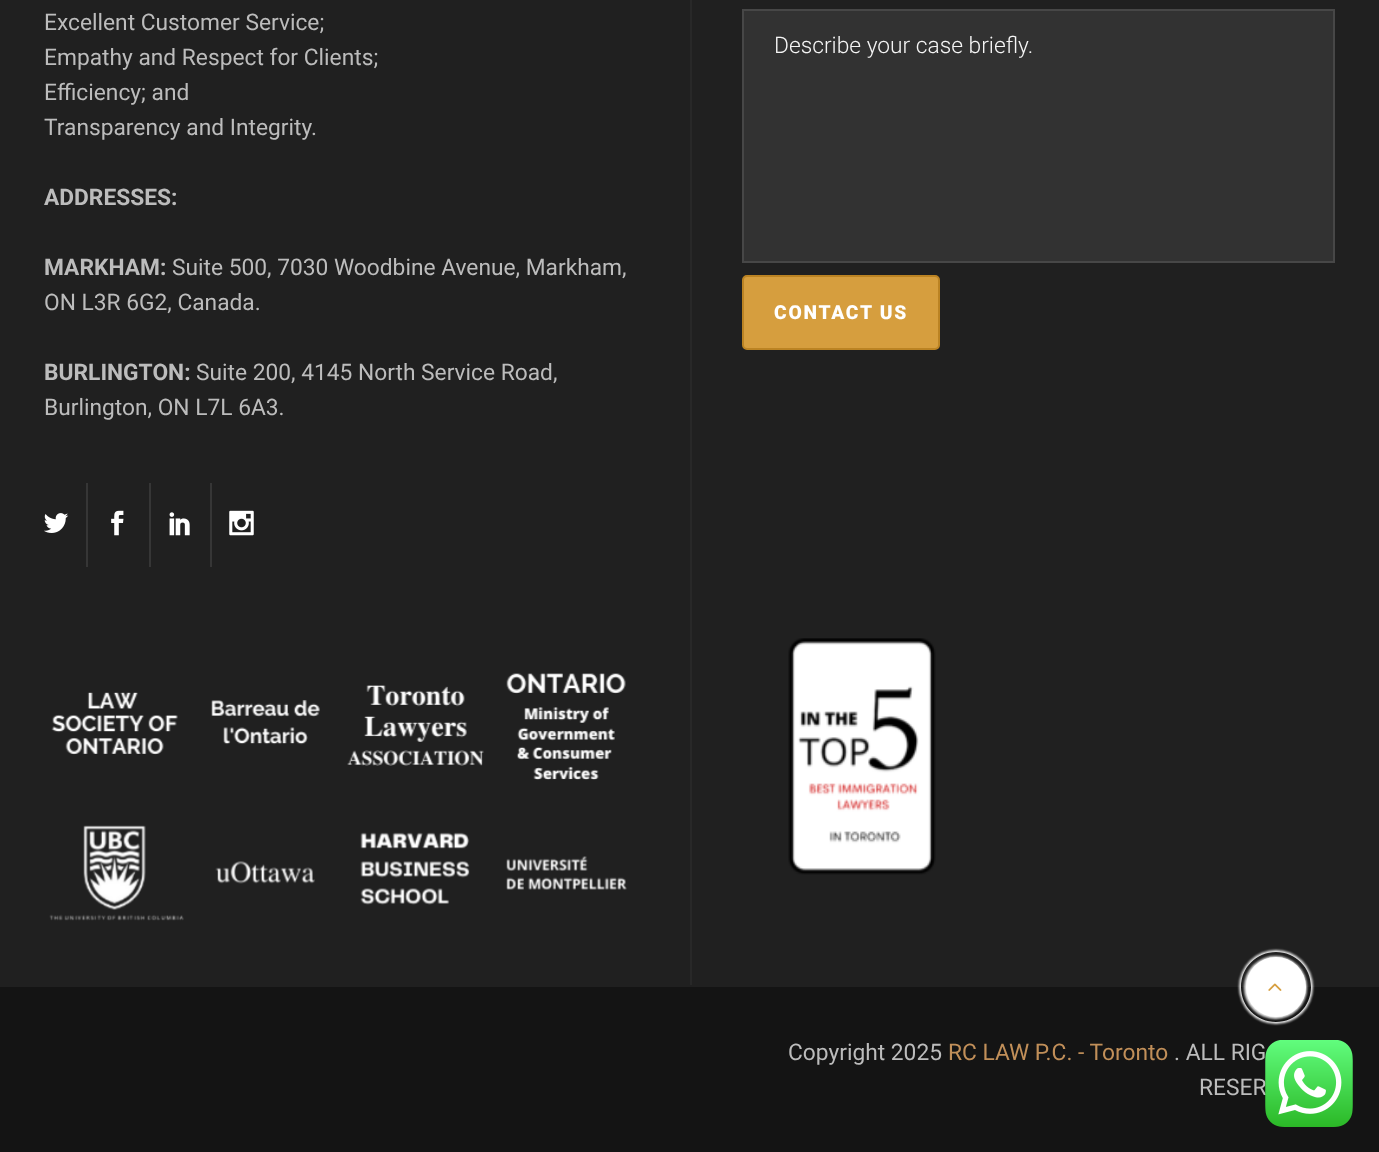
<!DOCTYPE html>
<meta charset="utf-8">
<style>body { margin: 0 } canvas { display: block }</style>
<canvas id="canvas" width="1379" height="1152"></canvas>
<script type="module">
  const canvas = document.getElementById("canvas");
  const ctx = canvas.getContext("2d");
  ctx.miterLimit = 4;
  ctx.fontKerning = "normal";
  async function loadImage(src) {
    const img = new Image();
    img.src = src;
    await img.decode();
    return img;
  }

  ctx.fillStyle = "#141414";
  ctx.fillRect(0, 0, 1379, 1152);
  ctx.fillStyle = "#202020";
  ctx.fillRect(0, 0, 1379, 987);
  ctx.font = "22.75px Roboto";
  ctx.fillStyle = "#bcbcbc";
  ctx.fillText("Excellent Customer Service;", 44, 30);
  ctx.fillText("Empathy and Respect for Clients;", 44, 65);
  ctx.fillText("Efficiency; and", 44, 100);
  ctx.fillText("Transparency and Integrity.", 44, 135);
  ctx.font = "bold 22.75px Roboto";
  ctx.fillText("ADDRESSES:", 44, 205);
  ctx.fillText("MARKHAM:", 44, 275);
  ctx.font = "22.75px Roboto";
  ctx.fillText("Suite 500, 7030 Woodbine Avenue, Markham,", 172, 275);
  ctx.fillText("ON L3R 6G2, Canada.", 44, 310);
  ctx.font = "bold 22.75px Roboto";
  ctx.fillText("BURLINGTON:", 44, 380);
  ctx.font = "22.75px Roboto";
  ctx.fillText("Suite 200, 4145 North Service Road,", 196, 380);
  ctx.fillText("Burlington, ON L7L 6A3.", 44, 415);
  ctx.drawImage(await loadImage("img1.png"), 44, 513, 25, 20);
  ctx.fillStyle = "#363636";
  ctx.fillRect(86, 483, 2, 84);
  ctx.drawImage(await loadImage("img2.png"), 111, 510, 13, 26);
  ctx.fillRect(149, 483, 2, 84);
  ctx.drawImage(await loadImage("img3.png"), 169, 512, 21, 24);
  ctx.fillRect(210, 483, 2, 84);
  ctx.drawImage(await loadImage("img4.png"), 229, 510, 25, 26);
  ctx.fillStyle = "#282828";
  ctx.fillRect(690, 0, 2, 985);
  ctx.fillStyle = "#323232";
  ctx.beginPath();
  ctx.rect(743, 10, 591, 252);
  ctx.fill();
  ctx.strokeStyle = "#474747";
  ctx.lineWidth = 2;
  ctx.stroke();
  ctx.font = "300 22.75px Roboto";
  ctx.fillStyle = "#f5f5f5";
  ctx.fillText("Describe your case briefly.", 774, 53);
  ctx.fillStyle = "#d69e3e";
  ctx.beginPath();
  ctx.roundRect(743, 276, 196, 73, 4);
  ctx.fill();
  ctx.strokeStyle = "#bb8323";
  ctx.stroke();
  ctx.letterSpacing = "1.75px";
  ctx.font = "900 19.25px Roboto";
  ctx.fillStyle = "#ffffff";
  ctx.fillText("CONTACT US", 774, 319);
  ctx.drawImage(await loadImage("img5.png"), 51, 692, 127, 63);
  ctx.drawImage(await loadImage("img6.png"), 211, 700, 109, 45);
  ctx.drawImage(await loadImage("img7.png"), 347, 685, 137, 81);
  ctx.drawImage(await loadImage("img8.png"), 506, 673, 120, 107);
  ctx.drawImage(await loadImage("img9.png"), 49, 825, 135, 96);
  ctx.drawImage(await loadImage("img10.png"), 215, 861, 100, 23);
  ctx.drawImage(await loadImage("img11.png"), 360, 832, 110, 73);
  ctx.drawImage(await loadImage("img12.png"), 506, 856, 121, 34);
  ctx.drawImage(await loadImage("img13.png"), 788, 638, 148, 237);
  ctx.letterSpacing = "0px";
  ctx.font = "22.75px Roboto";
  ctx.fillStyle = "#bcbcbc";
  ctx.fillText("Copyright 2025", 788, 1060);
  ctx.fillStyle = "#c18f59";
  ctx.fillText("RC LAW P.C. - Toronto", 948, 1060);
  ctx.fillStyle = "#bcbcbc";
  ctx.fillText(". ALL RIG", 1174, 1060);
  ctx.fillText("RESER", 1199, 1095);
  ctx.fillStyle = "#e7e7e7";
  ctx.filter = "blur(1px)";
  ctx.beginPath();
  ctx.roundRect(1244, 956, 63, 63, 31.5);
  ctx.fill();
  ctx.filter = "none";
  ctx.save();
  ctx.beginPath();
  ctx.moveTo(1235, 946);
  ctx.lineTo(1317, 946);
  ctx.lineTo(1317, 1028);
  ctx.lineTo(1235, 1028);
  ctx.closePath();
  ctx.moveTo(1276, 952);
  ctx.bezierCurveTo(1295.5, 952, 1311, 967.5, 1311, 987);
  ctx.bezierCurveTo(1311, 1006.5, 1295.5, 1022, 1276, 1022);
  ctx.bezierCurveTo(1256.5, 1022, 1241, 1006.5, 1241, 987);
  ctx.bezierCurveTo(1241, 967.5, 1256.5, 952, 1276, 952);
  ctx.closePath();
  ctx.clip("evenodd");
  ctx.filter = "blur(1px)";
  ctx.beginPath();
  ctx.roundRect(1239, 950, 74, 74, 37);
  ctx.fill();
  ctx.filter = "none";
  ctx.restore();
  ctx.fillStyle = "#ffffff";
  ctx.beginPath();
  ctx.arc(1276, 987, 30, 0, Math.PI * 2);
  ctx.fill();
  ctx.drawImage(await loadImage("img14.png"), 1268, 983, 14, 8);
  ctx.drawImage(await loadImage("img15.png"), 1265, 1040, 88, 87);
</script>
